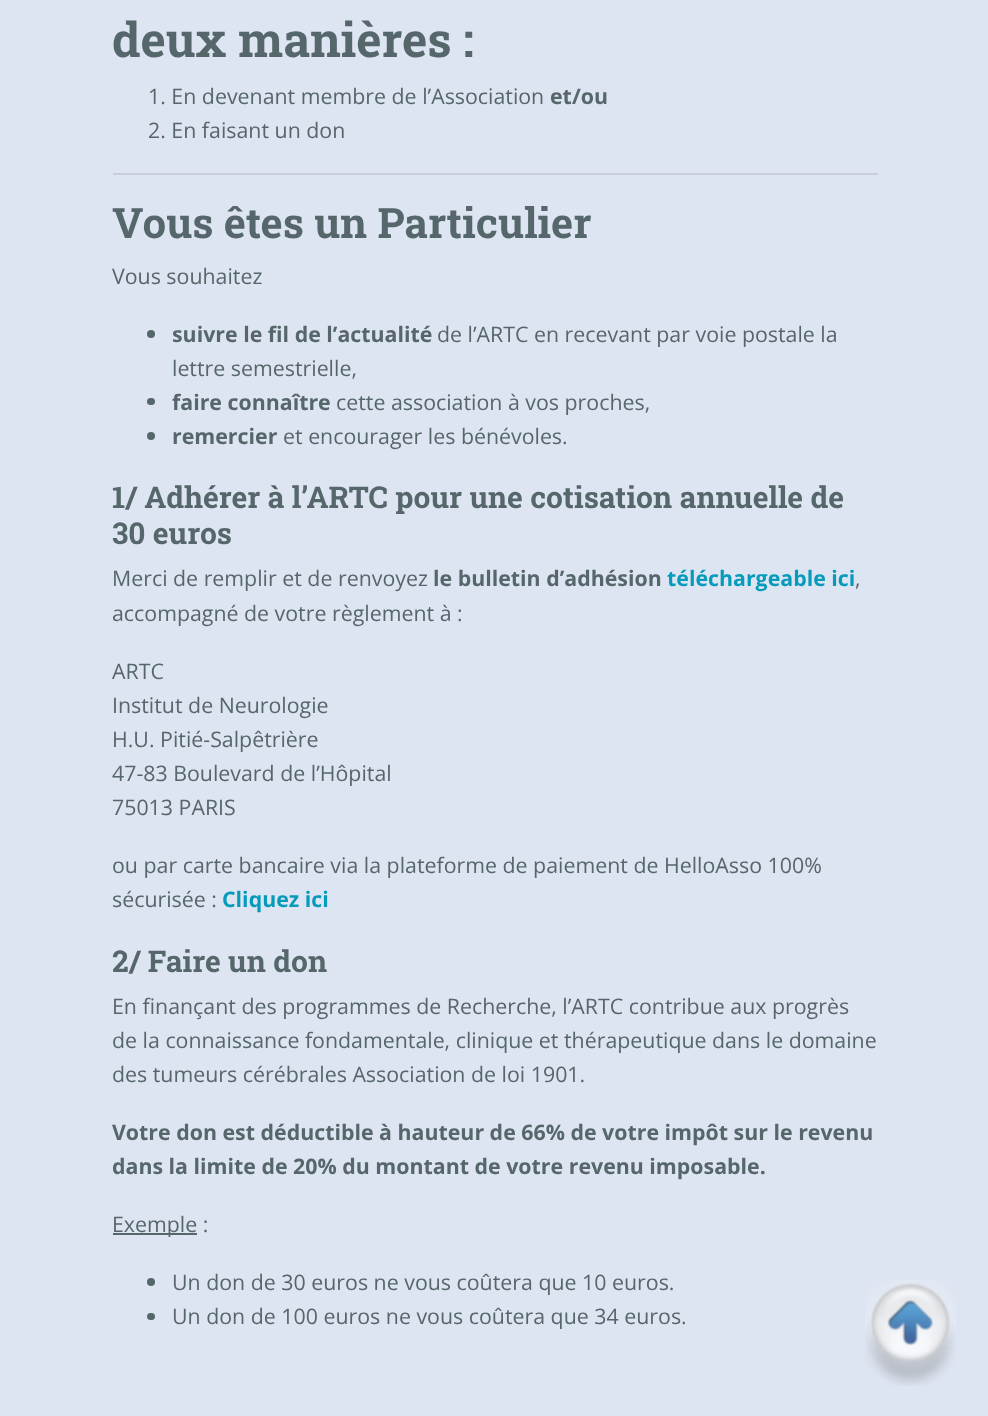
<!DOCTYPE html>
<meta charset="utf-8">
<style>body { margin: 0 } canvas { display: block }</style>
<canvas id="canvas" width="988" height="1416"></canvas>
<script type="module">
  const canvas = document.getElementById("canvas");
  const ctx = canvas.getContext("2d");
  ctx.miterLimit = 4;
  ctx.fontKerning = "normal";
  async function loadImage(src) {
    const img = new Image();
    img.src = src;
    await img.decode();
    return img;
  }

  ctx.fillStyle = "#dee5f2";
  ctx.fillRect(0, 0, 988, 1416);
  ctx.font = "bold 48px Roboto Slab";
  ctx.fillStyle = "#56676b";
  ctx.fillText("deux manières :", 112, 57);
  ctx.font = "21.35px Open Sans";
  ctx.fillText("1. En devenant membre de l’Association", 148, 104);
  ctx.font = "bold 21.35px Open Sans";
  ctx.fillText("et/ou", 550, 104);
  ctx.font = "21.35px Open Sans";
  ctx.fillText("2. En faisant un don", 148, 138);
  ctx.fillStyle = "#c8ceda";
  ctx.fillRect(113, 173, 765, 2);
  ctx.font = "bold 42px Roboto Slab";
  ctx.fillStyle = "#56676b";
  ctx.fillText("Vous êtes un Particulier", 112, 238);
  ctx.font = "21.35px Open Sans";
  ctx.fillText("Vous souhaitez", 112, 284);
  ctx.beginPath();
  ctx.arc(151, 334, 4, 0, Math.PI * 2);
  ctx.fill();
  ctx.font = "bold 21.35px Open Sans";
  ctx.fillText("suivre le fil de l’actualité", 172, 342);
  ctx.font = "21.35px Open Sans";
  ctx.fillText("de l’ARTC en recevant par voie postale la", 437, 342);
  ctx.fillText("lettre semestrielle,", 172, 376);
  ctx.beginPath();
  ctx.roundRect(147, 398, 8, 7, 3.5);
  ctx.fill();
  ctx.font = "bold 21.35px Open Sans";
  ctx.fillText("faire connaître", 172, 410);
  ctx.font = "21.35px Open Sans";
  ctx.fillText("cette association à vos proches,", 336, 410);
  ctx.beginPath();
  ctx.arc(151, 436, 4, 0, Math.PI * 2);
  ctx.fill();
  ctx.font = "bold 21.35px Open Sans";
  ctx.fillText("remercier", 172, 444);
  ctx.font = "21.35px Open Sans";
  ctx.fillText("et encourager les bénévoles.", 283, 444);
  ctx.font = "bold 30px Roboto Slab";
  ctx.fillText("1/ Adhérer à l’ARTC pour une cotisation annuelle de", 112, 508);
  ctx.fillText("30 euros", 112, 544);
  ctx.font = "21.35px Open Sans";
  ctx.fillText("Merci de remplir et de renvoyez", 112, 586);
  ctx.font = "bold 21.35px Open Sans";
  ctx.fillText("le bulletin d’adhésion", 433, 586);
  ctx.fillStyle = "#079bbb";
  ctx.fillText("téléchargeable ici", 667, 586);
  ctx.font = "21.35px Open Sans";
  ctx.fillStyle = "#56676b";
  ctx.fillText(",", 855, 586);
  ctx.fillText("accompagné de votre règlement à :", 112, 621);
  ctx.fillText("ARTC", 112, 679);
  ctx.fillText("Institut de Neurologie", 112, 713);
  ctx.fillText("H.U. Pitié-Salpêtrière", 112, 747);
  ctx.fillText("47-83 Boulevard de l’Hôpital", 112, 781);
  ctx.fillText("75013 PARIS", 112, 815);
  ctx.fillText("ou par carte bancaire via la plateforme de paiement de HelloAsso 100%", 112, 873);
  ctx.fillText("sécurisée :", 112, 907);
  ctx.font = "bold 21.35px Open Sans";
  ctx.fillStyle = "#079bbb";
  ctx.fillText("Cliquez ici", 222, 907);
  ctx.font = "bold 30px Roboto Slab";
  ctx.fillStyle = "#56676b";
  ctx.fillText("2/ Faire un don", 112, 972);
  ctx.font = "21.35px Open Sans";
  ctx.fillText("En finançant des programmes de Recherche, l’ARTC contribue aux progrès", 112, 1014);
  ctx.fillText("de la connaissance fondamentale, clinique et thérapeutique dans le domaine", 112, 1048);
  ctx.fillText("des tumeurs cérébrales Association de loi 1901.", 112, 1082);
  ctx.font = "bold 21.35px Open Sans";
  ctx.fillText("Votre don est déductible à hauteur de 66% de votre impôt sur le revenu", 112, 1140);
  ctx.fillText("dans la limite de 20% du montant de votre revenu imposable.", 112, 1174);
  ctx.fillRect(113, 1233, 84, 2);
  ctx.font = "21.35px Open Sans";
  ctx.fillText("Exemple :", 112, 1232);
  ctx.beginPath();
  ctx.arc(151, 1282, 4, 0, Math.PI * 2);
  ctx.fill();
  ctx.fillText("Un don de 30 euros ne vous coûtera que 10 euros.", 172, 1290);
  ctx.beginPath();
  ctx.roundRect(147, 1313, 8, 7, 3.5);
  ctx.fill();
  ctx.fillText("Un don de 100 euros ne vous coûtera que 34 euros.", 172, 1324);
  ctx.drawImage(await loadImage("img1.png"), 865, 1280, 91, 106);
</script>
